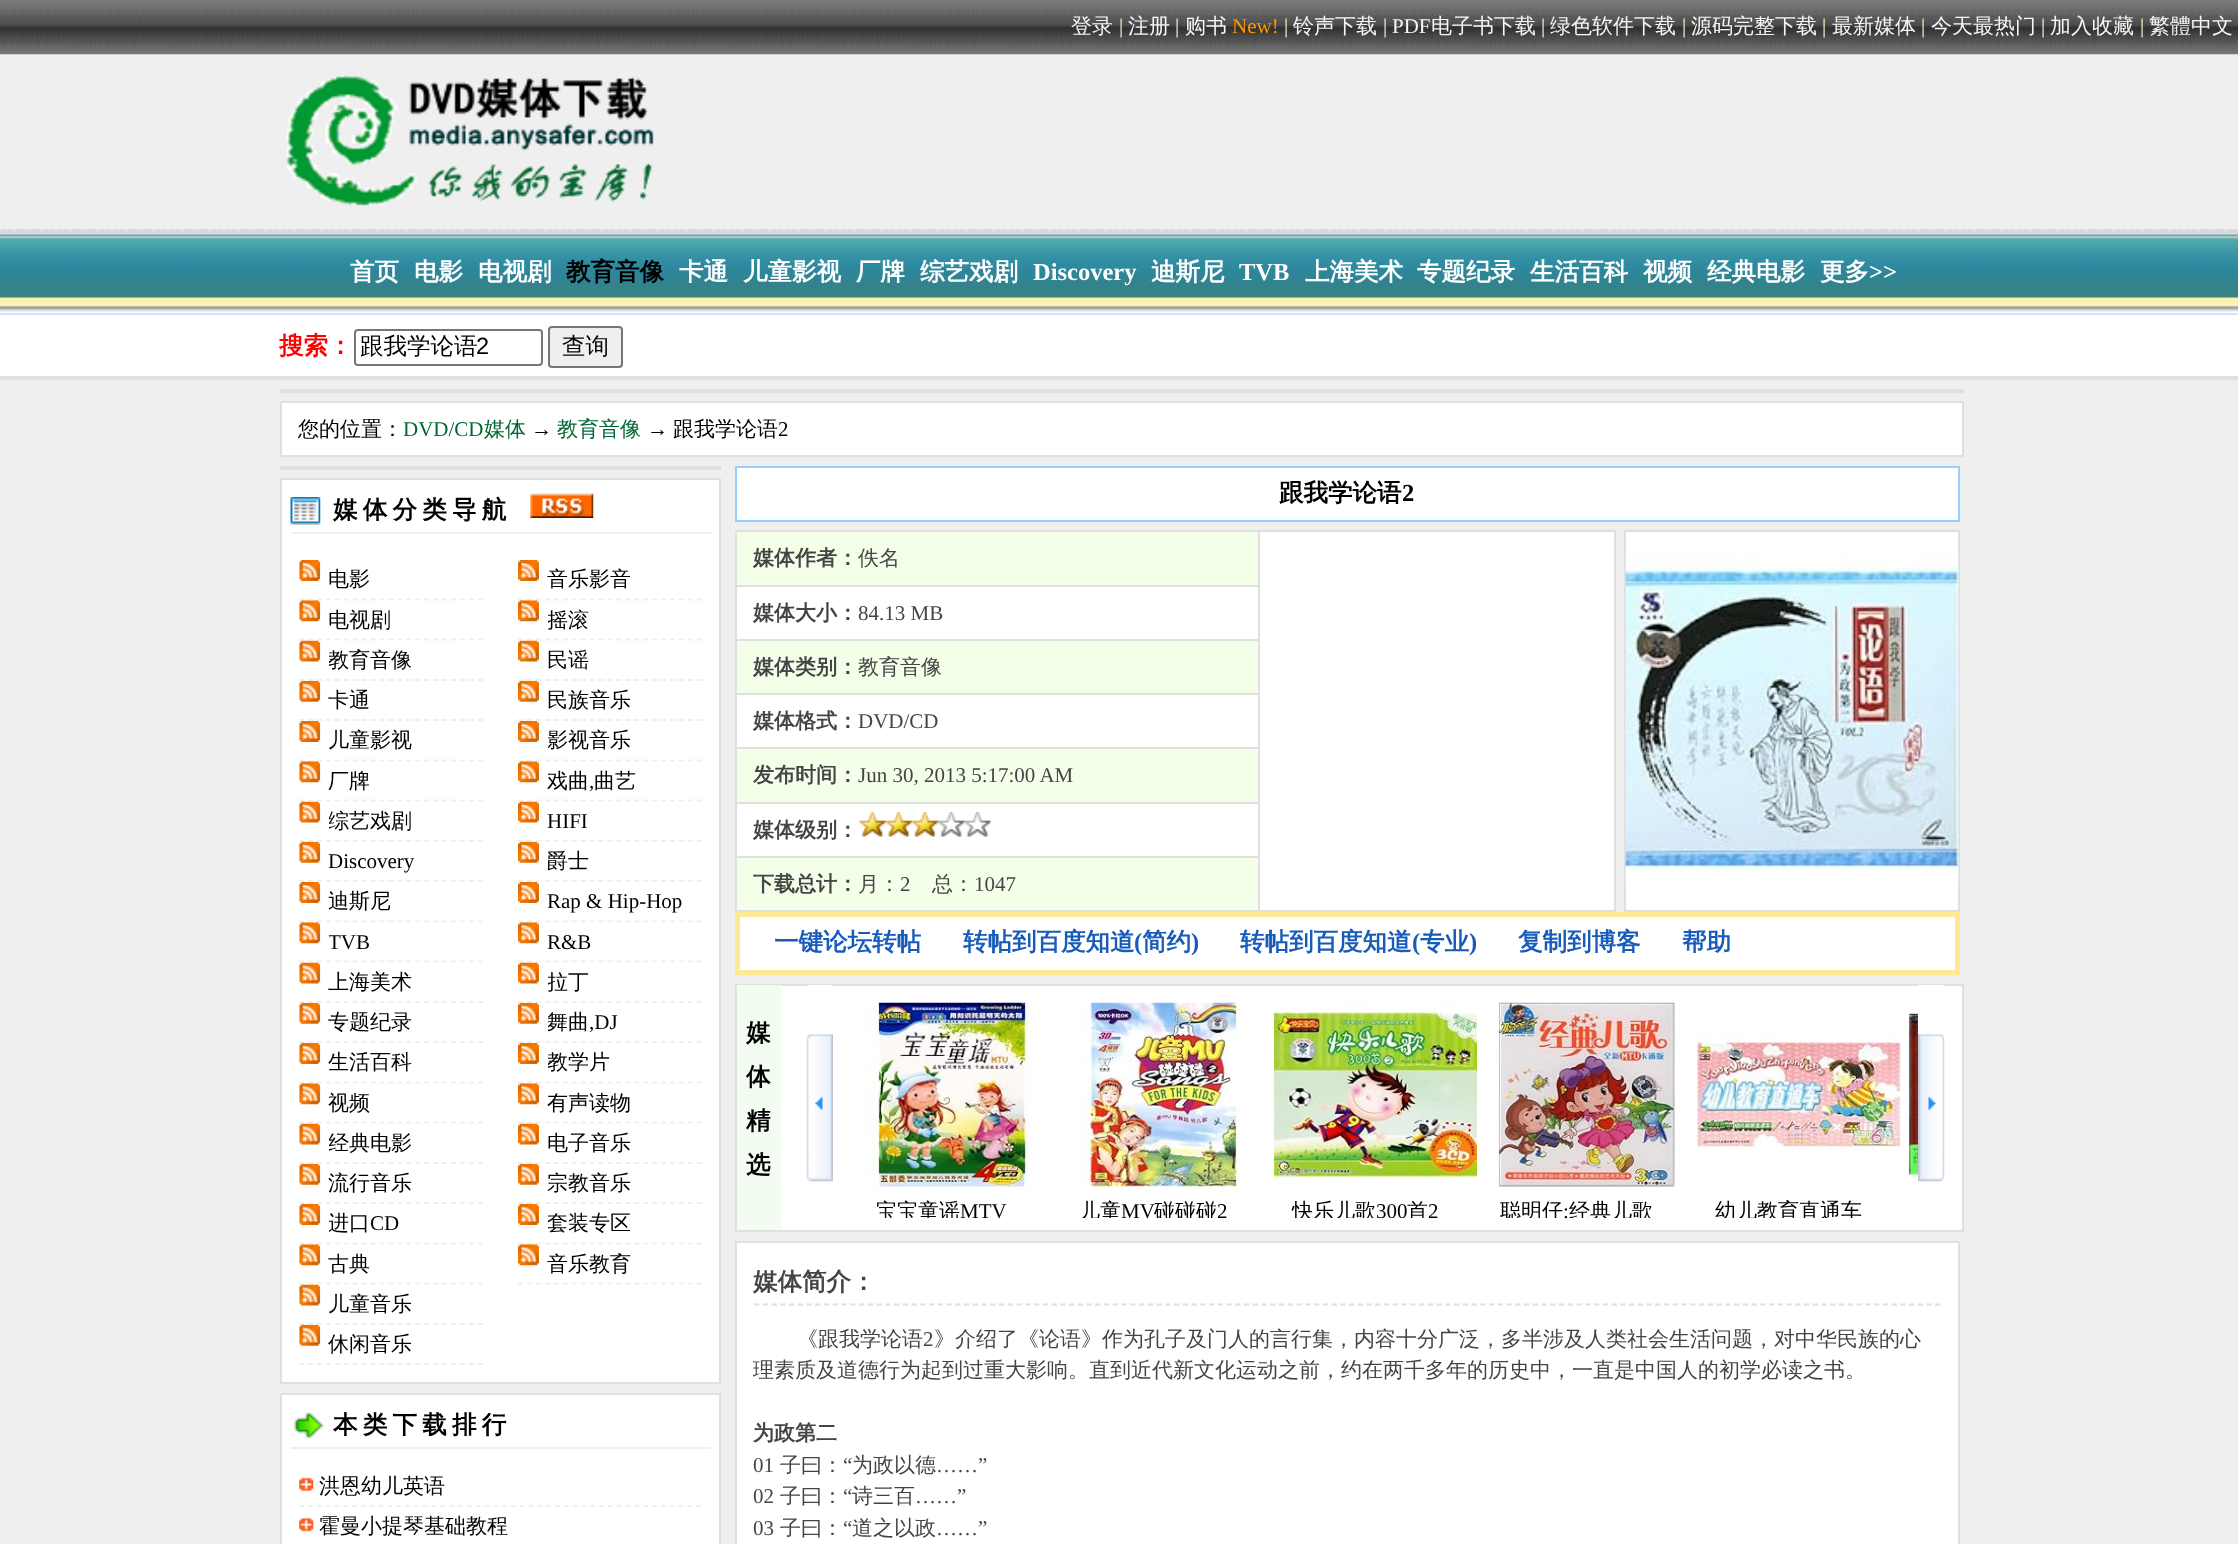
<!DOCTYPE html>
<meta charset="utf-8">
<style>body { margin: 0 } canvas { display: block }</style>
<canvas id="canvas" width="2238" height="1544"></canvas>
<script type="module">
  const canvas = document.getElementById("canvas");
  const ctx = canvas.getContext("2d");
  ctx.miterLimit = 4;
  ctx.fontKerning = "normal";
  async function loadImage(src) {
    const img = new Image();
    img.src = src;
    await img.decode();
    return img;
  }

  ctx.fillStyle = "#efefef";
  ctx.fillRect(0, 0, 2238, 1544);
  ctx.drawImage(await loadImage("img1.png"), 0, 0, 2238, 55);
  ctx.font = "500 21px WenQuanYi Zen Hei";
  ctx.fillStyle = "#f6f6f6";
  ctx.fillText("登录", 1071, 33);
  ctx.font = "21px Liberation Serif";
  ctx.fillStyle = "#fdf8d0";
  ctx.fillText("|", 1119, 33);
  ctx.font = "500 21px WenQuanYi Zen Hei";
  ctx.fillStyle = "#f6f6f6";
  ctx.fillText("注册", 1128, 33);
  ctx.font = "21px Liberation Serif";
  ctx.fillStyle = "#fdf8d0";
  ctx.fillText("|", 1175, 33);
  ctx.font = "500 21px WenQuanYi Zen Hei";
  ctx.fillStyle = "#f6f6f6";
  ctx.fillText("购书", 1185, 33);
  ctx.font = "21px Liberation Serif";
  ctx.fillStyle = "#ff9701";
  ctx.fillText("New!", 1232, 33);
  ctx.fillStyle = "#fdf8d0";
  ctx.fillText("|", 1284, 33);
  ctx.font = "500 21px WenQuanYi Zen Hei";
  ctx.fillStyle = "#f6f6f6";
  ctx.fillText("铃声下载", 1293, 33);
  ctx.font = "21px Liberation Serif";
  ctx.fillStyle = "#fdf8d0";
  ctx.fillText("|", 1383, 33);
  ctx.fillStyle = "#f6f6f6";
  ctx.fillText("PDF", 1392, 33);
  ctx.font = "500 21px WenQuanYi Zen Hei";
  ctx.fillText("电子书下载", 1431, 33);
  ctx.font = "21px Liberation Serif";
  ctx.fillStyle = "#fdf8d0";
  ctx.fillText("|", 1541, 33);
  ctx.font = "500 21px WenQuanYi Zen Hei";
  ctx.fillStyle = "#f6f6f6";
  ctx.fillText("绿色软件下载", 1550, 33);
  ctx.font = "21px Liberation Serif";
  ctx.fillStyle = "#fdf8d0";
  ctx.fillText("|", 1682, 33);
  ctx.font = "500 21px WenQuanYi Zen Hei";
  ctx.fillStyle = "#f6f6f6";
  ctx.fillText("源码完整下载", 1691, 33);
  ctx.font = "21px Liberation Serif";
  ctx.fillStyle = "#fdf8d0";
  ctx.fillText("|", 1822, 33);
  ctx.font = "500 21px WenQuanYi Zen Hei";
  ctx.fillStyle = "#f6f6f6";
  ctx.fillText("最新媒体", 1832, 33);
  ctx.font = "21px Liberation Serif";
  ctx.fillStyle = "#fdf8d0";
  ctx.fillText("|", 1921, 33);
  ctx.font = "500 21px WenQuanYi Zen Hei";
  ctx.fillStyle = "#f6f6f6";
  ctx.fillText("今天最热门", 1931, 33);
  ctx.font = "21px Liberation Serif";
  ctx.fillStyle = "#fdf8d0";
  ctx.fillText("|", 2041, 33);
  ctx.font = "500 21px WenQuanYi Zen Hei";
  ctx.fillStyle = "#f6f6f6";
  ctx.fillText("加入收藏", 2050, 33);
  ctx.font = "21px Liberation Serif";
  ctx.fillStyle = "#fdf8d0";
  ctx.fillText("|", 2140, 33);
  ctx.font = "500 21px WenQuanYi Zen Hei";
  ctx.fillStyle = "#f6f6f6";
  ctx.fillText("繁體中文", 2149, 33);
  ctx.drawImage(await loadImage("img2.png"), 286, 75, 368, 131);
  ctx.drawImage(await loadImage("img3.png"), 0, 229, 2238, 86);
  ctx.font = "bold 24.5px WenQuanYi Zen Hei";
  ctx.fillStyle = "#ffffff";
  ctx.fillText("首页", 350, 280);
  ctx.fillText("电影", 414, 280);
  ctx.fillText("电视剧", 478, 280);
  ctx.fillStyle = "#000000";
  ctx.fillText("教育音像", 566, 280);
  ctx.fillStyle = "#ffffff";
  ctx.fillText("卡通", 679, 280);
  ctx.fillText("儿童影视", 743, 280);
  ctx.fillText("厂牌", 856, 280);
  ctx.fillText("综艺戏剧", 920, 280);
  ctx.font = "bold 24.5px Liberation Serif";
  ctx.fillText("Discovery", 1033, 280);
  ctx.font = "bold 24.5px WenQuanYi Zen Hei";
  ctx.fillText("迪斯尼", 1151, 280);
  ctx.font = "bold 24.5px Liberation Serif";
  ctx.fillText("TVB", 1239, 280);
  ctx.font = "bold 24.5px WenQuanYi Zen Hei";
  ctx.fillText("上海美术", 1305, 280);
  ctx.fillText("专题纪录", 1417, 280);
  ctx.fillText("生活百科", 1530, 280);
  ctx.fillText("视频", 1643, 280);
  ctx.fillText("经典电影", 1707, 280);
  ctx.fillText("更多", 1820, 280);
  ctx.font = "bold 24.5px Liberation Serif";
  ctx.fillText(">>", 1869, 280);
  ctx.fillRect(0, 315, 2238, 61);
  ctx.fillStyle = "#e0e0e0";
  ctx.fillRect(0, 376, 2238, 4);
  ctx.font = "bold 24.5px WenQuanYi Zen Hei";
  ctx.fillStyle = "#ff0000";
  ctx.fillText("搜索：", 279, 354);
  ctx.beginPath();
  ctx.roundRect(355, 330, 187, 35, 3);
  ctx.strokeStyle = "#767676";
  ctx.lineWidth = 2;
  ctx.stroke();
  ctx.save();
  ctx.beginPath();
  ctx.rect(361, 333, 175, 29);
  ctx.clip();
  ctx.font = "500 23.5px WenQuanYi Zen Hei";
  ctx.fillStyle = "#000000";
  ctx.fillText("跟我学论语", 360, 354);
  ctx.restore();
  ctx.font = "23.5px Liberation Sans";
  ctx.fillStyle = "#000000";
  ctx.fillText("2", 476, 354);
  ctx.fillStyle = "#efefef";
  ctx.beginPath();
  ctx.roundRect(549, 327, 73, 40, 3);
  ctx.fill();
  ctx.stroke();
  ctx.font = "500 23.5px WenQuanYi Zen Hei";
  ctx.fillStyle = "#000000";
  ctx.fillText("查询", 562, 354);
  ctx.fillStyle = "#e0e0e0";
  ctx.fillRect(280, 389, 1684, 4);
  ctx.fillStyle = "#ffffff";
  ctx.beginPath();
  ctx.rect(281, 402, 1682, 54);
  ctx.fill();
  ctx.strokeStyle = "#e0e0e0";
  ctx.stroke();
  ctx.font = "500 21px WenQuanYi Zen Hei";
  ctx.fillStyle = "#000000";
  ctx.fillText("您的位置：", 298, 436);
  ctx.font = "21px Liberation Serif";
  ctx.fillStyle = "#006633";
  ctx.fillText("DVD/CD", 403, 436);
  ctx.font = "500 21px WenQuanYi Zen Hei";
  ctx.fillText("媒体", 484, 436);
  ctx.font = "21px Liberation Serif";
  ctx.fillStyle = "#000000";
  ctx.fillText("→", 531, 436);
  ctx.font = "500 21px WenQuanYi Zen Hei";
  ctx.fillStyle = "#006633";
  ctx.fillText("教育音像", 557, 436);
  ctx.font = "21px Liberation Serif";
  ctx.fillStyle = "#000000";
  ctx.fillText("→", 647, 436);
  ctx.font = "500 21px WenQuanYi Zen Hei";
  ctx.fillText("跟我学论语", 673, 436);
  ctx.font = "21px Liberation Serif";
  ctx.fillText("2", 778, 436);
  ctx.fillStyle = "#e0e0e0";
  ctx.fillRect(280, 466, 441, 4);
  ctx.fillStyle = "#ffffff";
  ctx.beginPath();
  ctx.rect(281, 479, 439, 904);
  ctx.fill();
  ctx.stroke();
  ctx.drawImage(await loadImage("img4.png"), 290, 497, 31, 28);
  ctx.fillStyle = "#efefef";
  ctx.fillRect(291, 532, 420, 2);
  ctx.letterSpacing = "5.25px";
  ctx.font = "bold 24.5px WenQuanYi Zen Hei";
  ctx.fillStyle = "#000000";
  ctx.fillText("媒体分类导航", 333, 518);
  ctx.drawImage(await loadImage("img5.png"), 530, 493, 64, 25);
  ctx.beginPath();
  ctx.moveTo(299, 599.5);
  ctx.lineTo(483, 599.5);
  ctx.strokeStyle = "#efefef";
  ctx.lineWidth = 1.8;
  ctx.setLineDash([5.25, 3.68]);
  ctx.stroke();
  ctx.drawImage(await loadImage("img6.png"), 299, 560, 22, 21);
  ctx.letterSpacing = "0px";
  ctx.font = "500 21px WenQuanYi Zen Hei";
  ctx.fillText("电影", 328, 586);
  ctx.beginPath();
  ctx.moveTo(299, 639.5);
  ctx.lineTo(483, 639.5);
  ctx.stroke();
  ctx.drawImage(await loadImage("img7.png"), 299, 600, 22, 22);
  ctx.fillText("电视剧", 328, 627);
  ctx.beginPath();
  ctx.moveTo(299, 680);
  ctx.lineTo(483, 680);
  ctx.stroke();
  ctx.drawImage(await loadImage("img8.png"), 299, 640, 22, 22);
  ctx.save();
  ctx.beginPath();
  ctx.rect(329, 641, 84, 38);
  ctx.clip();
  ctx.fillText("教育音像", 328, 667);
  ctx.restore();
  ctx.beginPath();
  ctx.moveTo(299, 720);
  ctx.lineTo(483, 720);
  ctx.stroke();
  ctx.drawImage(await loadImage("img9.png"), 299, 680, 22, 22);
  ctx.fillText("卡通", 328, 707);
  ctx.beginPath();
  ctx.moveTo(299, 760.5);
  ctx.lineTo(483, 760.5);
  ctx.stroke();
  ctx.drawImage(await loadImage("img6.png"), 299, 721, 22, 21);
  ctx.fillText("儿童影视", 328, 747);
  ctx.beginPath();
  ctx.moveTo(299, 800.5);
  ctx.lineTo(483, 800.5);
  ctx.stroke();
  ctx.drawImage(await loadImage("img7.png"), 299, 761, 22, 22);
  ctx.fillText("厂牌", 328, 788);
  ctx.beginPath();
  ctx.moveTo(299, 841);
  ctx.lineTo(483, 841);
  ctx.stroke();
  ctx.drawImage(await loadImage("img8.png"), 299, 801, 22, 22);
  ctx.save();
  ctx.beginPath();
  ctx.rect(329, 802, 84, 38);
  ctx.clip();
  ctx.fillText("综艺戏剧", 328, 828);
  ctx.restore();
  ctx.beginPath();
  ctx.moveTo(299, 881);
  ctx.lineTo(483, 881);
  ctx.stroke();
  ctx.drawImage(await loadImage("img9.png"), 299, 841, 22, 22);
  ctx.font = "21px Liberation Serif";
  ctx.fillText("Discovery", 328, 868);
  ctx.beginPath();
  ctx.moveTo(299, 921.5);
  ctx.lineTo(483, 921.5);
  ctx.stroke();
  ctx.drawImage(await loadImage("img6.png"), 299, 882, 22, 21);
  ctx.font = "500 21px WenQuanYi Zen Hei";
  ctx.fillText("迪斯尼", 328, 908);
  ctx.beginPath();
  ctx.moveTo(299, 961.5);
  ctx.lineTo(483, 961.5);
  ctx.stroke();
  ctx.drawImage(await loadImage("img7.png"), 299, 922, 22, 22);
  ctx.save();
  ctx.beginPath();
  ctx.rect(329, 922, 42, 39);
  ctx.clip();
  ctx.font = "21px Liberation Serif";
  ctx.fillText("TVB", 328, 949);
  ctx.restore();
  ctx.beginPath();
  ctx.moveTo(299, 1002);
  ctx.lineTo(483, 1002);
  ctx.stroke();
  ctx.drawImage(await loadImage("img8.png"), 299, 962, 22, 22);
  ctx.fillText("上海美术", 328, 989);
  ctx.beginPath();
  ctx.moveTo(299, 1042);
  ctx.lineTo(483, 1042);
  ctx.stroke();
  ctx.drawImage(await loadImage("img9.png"), 299, 1002, 22, 22);
  ctx.fillText("专题纪录", 328, 1029);
  ctx.beginPath();
  ctx.moveTo(299, 1082.5);
  ctx.lineTo(483, 1082.5);
  ctx.stroke();
  ctx.drawImage(await loadImage("img6.png"), 299, 1043, 22, 21);
  ctx.fillText("生活百科", 328, 1069);
  ctx.beginPath();
  ctx.moveTo(299, 1122.5);
  ctx.lineTo(483, 1122.5);
  ctx.stroke();
  ctx.drawImage(await loadImage("img7.png"), 299, 1083, 22, 22);
  ctx.fillText("视频", 328, 1110);
  ctx.beginPath();
  ctx.moveTo(299, 1163);
  ctx.lineTo(483, 1163);
  ctx.stroke();
  ctx.drawImage(await loadImage("img8.png"), 299, 1123, 22, 22);
  ctx.save();
  ctx.beginPath();
  ctx.rect(329, 1124, 84, 38);
  ctx.clip();
  ctx.fillText("经典电影", 328, 1150);
  ctx.restore();
  ctx.beginPath();
  ctx.moveTo(299, 1203);
  ctx.lineTo(483, 1203);
  ctx.stroke();
  ctx.drawImage(await loadImage("img9.png"), 299, 1163, 22, 22);
  ctx.fillText("流行音乐", 328, 1190);
  ctx.beginPath();
  ctx.moveTo(299, 1243.5);
  ctx.lineTo(483, 1243.5);
  ctx.stroke();
  ctx.drawImage(await loadImage("img6.png"), 299, 1204, 22, 21);
  ctx.save();
  ctx.beginPath();
  ctx.rect(329, 1204, 70, 39);
  ctx.clip();
  ctx.fillText("进口", 328, 1230);
  ctx.restore();
  ctx.font = "21px Liberation Serif";
  ctx.fillText("CD", 370, 1230);
  ctx.beginPath();
  ctx.moveTo(299, 1283.5);
  ctx.lineTo(483, 1283.5);
  ctx.stroke();
  ctx.drawImage(await loadImage("img7.png"), 299, 1244, 22, 22);
  ctx.font = "500 21px WenQuanYi Zen Hei";
  ctx.fillText("古典", 328, 1271);
  ctx.beginPath();
  ctx.moveTo(299, 1324);
  ctx.lineTo(483, 1324);
  ctx.stroke();
  ctx.drawImage(await loadImage("img8.png"), 299, 1284, 22, 22);
  ctx.fillText("儿童音乐", 328, 1311);
  ctx.beginPath();
  ctx.moveTo(299, 1364);
  ctx.lineTo(483, 1364);
  ctx.stroke();
  ctx.drawImage(await loadImage("img9.png"), 299, 1324, 22, 22);
  ctx.fillText("休闲音乐", 328, 1351);
  ctx.beginPath();
  ctx.moveTo(518, 599.5);
  ctx.lineTo(702, 599.5);
  ctx.stroke();
  ctx.drawImage(await loadImage("img10.png"), 518, 560, 21, 21);
  ctx.fillText("音乐影音", 547, 586);
  ctx.beginPath();
  ctx.moveTo(518, 639.5);
  ctx.lineTo(702, 639.5);
  ctx.stroke();
  ctx.drawImage(await loadImage("img11.png"), 518, 600, 21, 22);
  ctx.save();
  ctx.beginPath();
  ctx.rect(548, 600, 42, 39);
  ctx.clip();
  ctx.fillText("摇滚", 547, 627);
  ctx.restore();
  ctx.beginPath();
  ctx.moveTo(518, 680);
  ctx.lineTo(702, 680);
  ctx.stroke();
  ctx.drawImage(await loadImage("img12.png"), 518, 640, 21, 22);
  ctx.fillText("民谣", 547, 667);
  ctx.beginPath();
  ctx.moveTo(518, 720);
  ctx.lineTo(702, 720);
  ctx.stroke();
  ctx.drawImage(await loadImage("img13.png"), 518, 680, 21, 22);
  ctx.fillText("民族音乐", 547, 707);
  ctx.beginPath();
  ctx.moveTo(518, 760.5);
  ctx.lineTo(702, 760.5);
  ctx.stroke();
  ctx.drawImage(await loadImage("img10.png"), 518, 721, 21, 21);
  ctx.save();
  ctx.beginPath();
  ctx.rect(548, 721, 84, 39);
  ctx.clip();
  ctx.fillText("影视音乐", 547, 747);
  ctx.restore();
  ctx.beginPath();
  ctx.moveTo(518, 800.5);
  ctx.lineTo(702, 800.5);
  ctx.stroke();
  ctx.drawImage(await loadImage("img11.png"), 518, 761, 21, 22);
  ctx.fillText("戏曲", 547, 788);
  ctx.font = "21px Liberation Serif";
  ctx.fillText(",", 589, 788);
  ctx.font = "500 21px WenQuanYi Zen Hei";
  ctx.fillText("曲艺", 594, 788);
  ctx.beginPath();
  ctx.moveTo(518, 841);
  ctx.lineTo(702, 841);
  ctx.stroke();
  ctx.drawImage(await loadImage("img12.png"), 518, 801, 21, 22);
  ctx.font = "21px Liberation Serif";
  ctx.fillText("HIFI", 547, 828);
  ctx.beginPath();
  ctx.moveTo(518, 881);
  ctx.lineTo(702, 881);
  ctx.stroke();
  ctx.drawImage(await loadImage("img13.png"), 518, 841, 21, 22);
  ctx.save();
  ctx.beginPath();
  ctx.rect(548, 842, 42, 38);
  ctx.clip();
  ctx.font = "500 21px WenQuanYi Zen Hei";
  ctx.fillText("爵士", 547, 868);
  ctx.restore();
  ctx.beginPath();
  ctx.moveTo(518, 921.5);
  ctx.lineTo(702, 921.5);
  ctx.stroke();
  ctx.drawImage(await loadImage("img10.png"), 518, 882, 21, 21);
  ctx.fillText("Rap & Hip-Hop", 547, 908);
  ctx.beginPath();
  ctx.moveTo(518, 961.5);
  ctx.lineTo(702, 961.5);
  ctx.stroke();
  ctx.drawImage(await loadImage("img11.png"), 518, 922, 21, 22);
  ctx.fillText("R&B", 547, 949);
  ctx.beginPath();
  ctx.moveTo(518, 1002);
  ctx.lineTo(702, 1002);
  ctx.stroke();
  ctx.drawImage(await loadImage("img12.png"), 518, 962, 21, 22);
  ctx.save();
  ctx.beginPath();
  ctx.rect(548, 963, 42, 38);
  ctx.clip();
  ctx.font = "500 21px WenQuanYi Zen Hei";
  ctx.fillText("拉丁", 547, 989);
  ctx.restore();
  ctx.beginPath();
  ctx.moveTo(518, 1042);
  ctx.lineTo(702, 1042);
  ctx.stroke();
  ctx.drawImage(await loadImage("img13.png"), 518, 1002, 21, 22);
  ctx.save();
  ctx.beginPath();
  ctx.rect(548, 1003, 70, 38);
  ctx.clip();
  ctx.font = "500 21px WenQuanYi Zen Hei";
  ctx.fillText("舞曲", 547, 1029);
  ctx.restore();
  ctx.fillText(",DJ", 589, 1029);
  ctx.beginPath();
  ctx.moveTo(518, 1082.5);
  ctx.lineTo(702, 1082.5);
  ctx.stroke();
  ctx.drawImage(await loadImage("img10.png"), 518, 1043, 21, 21);
  ctx.save();
  ctx.beginPath();
  ctx.rect(548, 1043, 63, 39);
  ctx.clip();
  ctx.font = "500 21px WenQuanYi Zen Hei";
  ctx.fillText("教学片", 547, 1069);
  ctx.restore();
  ctx.beginPath();
  ctx.moveTo(518, 1122.5);
  ctx.lineTo(702, 1122.5);
  ctx.stroke();
  ctx.drawImage(await loadImage("img11.png"), 518, 1083, 21, 22);
  ctx.font = "500 21px WenQuanYi Zen Hei";
  ctx.fillText("有声读物", 547, 1110);
  ctx.beginPath();
  ctx.moveTo(518, 1163);
  ctx.lineTo(702, 1163);
  ctx.stroke();
  ctx.drawImage(await loadImage("img12.png"), 518, 1123, 21, 22);
  ctx.fillText("电子音乐", 547, 1150);
  ctx.beginPath();
  ctx.moveTo(518, 1203);
  ctx.lineTo(702, 1203);
  ctx.stroke();
  ctx.drawImage(await loadImage("img13.png"), 518, 1163, 21, 22);
  ctx.fillText("宗教音乐", 547, 1190);
  ctx.beginPath();
  ctx.moveTo(518, 1243.5);
  ctx.lineTo(702, 1243.5);
  ctx.stroke();
  ctx.drawImage(await loadImage("img10.png"), 518, 1204, 21, 21);
  ctx.save();
  ctx.beginPath();
  ctx.rect(548, 1204, 84, 39);
  ctx.clip();
  ctx.fillText("套装专区", 547, 1230);
  ctx.restore();
  ctx.beginPath();
  ctx.moveTo(518, 1283.5);
  ctx.lineTo(702, 1283.5);
  ctx.stroke();
  ctx.drawImage(await loadImage("img11.png"), 518, 1244, 21, 22);
  ctx.fillText("音乐教育", 547, 1271);
  ctx.fillStyle = "#ffffff";
  ctx.beginPath();
  ctx.rect(281, 1394, 439, 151);
  ctx.fill();
  ctx.strokeStyle = "#e0e0e0";
  ctx.lineWidth = 2;
  ctx.setLineDash([]);
  ctx.stroke();
  ctx.drawImage(await loadImage("img14.png"), 293, 1412, 31, 27);
  ctx.fillStyle = "#efefef";
  ctx.fillRect(291, 1447, 420, 2);
  ctx.letterSpacing = "5.25px";
  ctx.font = "bold 24.5px WenQuanYi Zen Hei";
  ctx.fillStyle = "#000000";
  ctx.fillText("本类下载排行", 333, 1433);
  ctx.drawImage(await loadImage("img15.png"), 299, 1477, 15, 15);
  ctx.beginPath();
  ctx.moveTo(299, 1506);
  ctx.lineTo(702, 1506);
  ctx.strokeStyle = "#efefef";
  ctx.lineWidth = 1.8;
  ctx.setLineDash([5.25, 3.57]);
  ctx.stroke();
  ctx.letterSpacing = "0px";
  ctx.font = "500 21px WenQuanYi Zen Hei";
  ctx.fillText("洪恩幼儿英语", 319, 1493);
  ctx.drawImage(await loadImage("img16.png"), 299, 1518, 15, 14);
  ctx.fillText("霍曼小提琴基础教程", 319, 1533);
  ctx.fillStyle = "#ffffff";
  ctx.beginPath();
  ctx.rect(736, 467, 1223, 54);
  ctx.fill();
  ctx.strokeStyle = "#99ccff";
  ctx.lineWidth = 2;
  ctx.setLineDash([]);
  ctx.stroke();
  ctx.font = "bold 24.5px WenQuanYi Zen Hei";
  ctx.fillStyle = "#000000";
  ctx.fillText("跟我学论语", 1279, 501);
  ctx.font = "bold 24.5px Liberation Serif";
  ctx.fillText("2", 1402, 501);
  ctx.fillStyle = "#f3ffe9";
  ctx.fillRect(737, 532, 521, 53);
  ctx.fillStyle = "#e0e0e0";
  ctx.fillRect(735, 530, 880, 2);
  ctx.fillRect(1258, 530, 2, 55);
  ctx.fillRect(735, 530, 2, 55);
  ctx.font = "bold 21px WenQuanYi Zen Hei";
  ctx.fillStyle = "#444444";
  ctx.fillText("媒体作者：", 753, 565);
  ctx.font = "500 21px WenQuanYi Zen Hei";
  ctx.fillText("佚名", 858, 565);
  ctx.fillStyle = "#ffffff";
  ctx.fillRect(737, 587, 521, 52);
  ctx.fillStyle = "#e0e0e0";
  ctx.fillRect(735, 585, 525, 2);
  ctx.fillRect(1258, 585, 2, 54);
  ctx.fillRect(735, 585, 2, 54);
  ctx.font = "bold 21px WenQuanYi Zen Hei";
  ctx.fillStyle = "#444444";
  ctx.fillText("媒体大小：", 753, 620);
  ctx.font = "21px Liberation Serif";
  ctx.fillText("84.13 MB", 858, 620);
  ctx.fillStyle = "#f3ffe9";
  ctx.fillRect(737, 641, 521, 52);
  ctx.fillStyle = "#e0e0e0";
  ctx.fillRect(735, 639, 525, 2);
  ctx.fillRect(1258, 639, 2, 54);
  ctx.fillRect(735, 639, 2, 54);
  ctx.font = "bold 21px WenQuanYi Zen Hei";
  ctx.fillStyle = "#444444";
  ctx.fillText("媒体类别：", 753, 674);
  ctx.font = "500 21px WenQuanYi Zen Hei";
  ctx.fillText("教育音像", 858, 674);
  ctx.fillStyle = "#ffffff";
  ctx.fillRect(737, 695, 521, 52);
  ctx.fillStyle = "#e0e0e0";
  ctx.fillRect(735, 693, 525, 2);
  ctx.fillRect(1258, 693, 2, 54);
  ctx.fillRect(735, 693, 2, 54);
  ctx.font = "bold 21px WenQuanYi Zen Hei";
  ctx.fillStyle = "#444444";
  ctx.fillText("媒体格式：", 753, 728);
  ctx.font = "21px Liberation Serif";
  ctx.fillText("DVD/CD", 858, 728);
  ctx.fillStyle = "#f3ffe9";
  ctx.fillRect(737, 749, 521, 53);
  ctx.fillStyle = "#e0e0e0";
  ctx.fillRect(735, 747, 525, 2);
  ctx.fillRect(1258, 747, 2, 55);
  ctx.fillRect(735, 747, 2, 55);
  ctx.font = "bold 21px WenQuanYi Zen Hei";
  ctx.fillStyle = "#444444";
  ctx.fillText("发布时间：", 753, 782);
  ctx.font = "21px Liberation Serif";
  ctx.fillText("Jun 30, 2013 5:17:00 AM", 858, 782);
  ctx.fillStyle = "#ffffff";
  ctx.fillRect(737, 804, 521, 52);
  ctx.fillStyle = "#e0e0e0";
  ctx.fillRect(735, 802, 525, 2);
  ctx.fillRect(1258, 802, 2, 54);
  ctx.fillRect(735, 802, 2, 54);
  ctx.font = "bold 21px WenQuanYi Zen Hei";
  ctx.fillStyle = "#444444";
  ctx.fillText("媒体级别：", 753, 837);
  ctx.drawImage(await loadImage("img17.png"), 859, 812, 132, 25);
  ctx.fillStyle = "#f3ffe9";
  ctx.beginPath();
  ctx.rect(736, 857, 523, 54);
  ctx.fill();
  ctx.strokeStyle = "#e0e0e0";
  ctx.stroke();
  ctx.fillStyle = "#444444";
  ctx.fillText("下载总计：", 753, 891);
  ctx.font = "500 21px WenQuanYi Zen Hei";
  ctx.fillText("月：", 858, 891);
  ctx.font = "21px Liberation Serif";
  ctx.fillText("2", 900, 891);
  ctx.font = "500 21px WenQuanYi Zen Hei";
  ctx.fillText("总：", 932, 891);
  ctx.font = "21px Liberation Serif";
  ctx.fillText("1047", 974, 891);
  ctx.fillStyle = "#ffffff";
  ctx.fillRect(1260, 532, 354, 378);
  ctx.fillStyle = "#e0e0e0";
  ctx.fillRect(1614, 530, 2, 382);
  ctx.fillRect(1260, 910, 355, 2);
  ctx.fillStyle = "#ffffff";
  ctx.beginPath();
  ctx.rect(1625, 531, 334, 380);
  ctx.fill();
  ctx.stroke();
  ctx.drawImage(await loadImage("img18.png"), 1625, 553, 334, 332);
  ctx.beginPath();
  ctx.rect(737.5, 914.5, 1220, 58);
  ctx.fill();
  ctx.strokeStyle = "#feea94";
  ctx.lineWidth = 5;
  ctx.stroke();
  ctx.font = "bold 24.5px WenQuanYi Zen Hei";
  ctx.fillStyle = "#175cbb";
  ctx.fillText("一键论坛转帖", 774, 950);
  ctx.fillText("转帖到百度知道", 963, 950);
  ctx.font = "bold 24.5px Liberation Serif";
  ctx.fillText("(", 1134, 950);
  ctx.font = "bold 24.5px WenQuanYi Zen Hei";
  ctx.fillText("简约", 1142, 950);
  ctx.font = "bold 24.5px Liberation Serif";
  ctx.fillText(")", 1191, 950);
  ctx.font = "bold 24.5px WenQuanYi Zen Hei";
  ctx.fillText("转帖到百度知道", 1240, 950);
  ctx.font = "bold 24.5px Liberation Serif";
  ctx.fillText("(", 1412, 950);
  ctx.font = "bold 24.5px WenQuanYi Zen Hei";
  ctx.fillText("专业", 1420, 950);
  ctx.font = "bold 24.5px Liberation Serif";
  ctx.fillText(")", 1469, 950);
  ctx.font = "bold 24.5px WenQuanYi Zen Hei";
  ctx.fillText("复制到博客", 1518, 950);
  ctx.fillText("帮助", 1682, 950);
  ctx.fillStyle = "#ffffff";
  ctx.fillRect(781, 986, 1181, 244);
  ctx.strokeStyle = "#e0e0e0";
  ctx.lineWidth = 2;
  ctx.strokeRect(736, 985, 1227, 246);
  ctx.fillStyle = "#f2fcf1";
  ctx.fillRect(737, 985, 44, 245);
  ctx.fillStyle = "#000000";
  ctx.fillText("媒", 746, 1041);
  ctx.fillText("体", 746, 1085);
  ctx.fillText("精", 746, 1129);
  ctx.fillText("选", 746, 1173);
  ctx.fillStyle = "#ffffff";
  ctx.fillRect(807, 985, 26, 1);
  ctx.drawImage(await loadImage("img19.png"), 806, 1034, 27, 148);
  ctx.fillRect(1918, 985, 26, 1);
  ctx.drawImage(await loadImage("img20.png"), 1918, 1034, 27, 148);
  ctx.drawImage(await loadImage("img21.png"), 1909, 1013, 9, 166);
  ctx.drawImage(await loadImage("img22.png"), 866, 1002, 164, 185);
  ctx.save();
  ctx.beginPath();
  ctx.rect(851, 1197, 183, 21);
  ctx.clip();
  ctx.font = "500 21px WenQuanYi Zen Hei";
  ctx.fillStyle = "#000000";
  ctx.fillText("宝宝童谣", 876, 1218);
  ctx.restore();
  ctx.font = "21px Liberation Serif";
  ctx.fillStyle = "#000000";
  ctx.fillText("MTV", 960, 1218);
  ctx.drawImage(await loadImage("img23.png"), 1079, 1002, 162, 185);
  ctx.save();
  ctx.beginPath();
  ctx.rect(1062, 1197, 184, 21);
  ctx.clip();
  ctx.font = "500 21px WenQuanYi Zen Hei";
  ctx.fillText("儿童", 1079, 1218);
  ctx.restore();
  ctx.fillText("MV", 1121, 1218);
  ctx.save();
  ctx.beginPath();
  ctx.rect(1062, 1197, 184, 21);
  ctx.clip();
  ctx.font = "500 21px WenQuanYi Zen Hei";
  ctx.fillText("碰碰碰", 1154, 1218);
  ctx.restore();
  ctx.fillText("2", 1217, 1218);
  ctx.drawImage(await loadImage("img24.png"), 1274, 1003, 203, 177);
  ctx.save();
  ctx.beginPath();
  ctx.rect(1274, 1197, 184, 21);
  ctx.clip();
  ctx.font = "500 21px WenQuanYi Zen Hei";
  ctx.fillText("快乐儿歌", 1292, 1218);
  ctx.font = "21px Liberation Serif";
  ctx.fillText("300", 1376, 1218);
  ctx.font = "500 21px WenQuanYi Zen Hei";
  ctx.fillText("首", 1407, 1218);
  ctx.restore();
  ctx.fillText("2", 1428, 1218);
  ctx.drawImage(await loadImage("img25.png"), 1494, 1002, 187, 185);
  ctx.save();
  ctx.beginPath();
  ctx.rect(1486, 1197, 184, 21);
  ctx.clip();
  ctx.font = "500 21px WenQuanYi Zen Hei";
  ctx.fillText("聪明仔", 1500, 1218);
  ctx.restore();
  ctx.fillText(":", 1563, 1218);
  ctx.save();
  ctx.beginPath();
  ctx.rect(1486, 1197, 184, 21);
  ctx.clip();
  ctx.font = "500 21px WenQuanYi Zen Hei";
  ctx.fillText("经典儿歌", 1569, 1218);
  ctx.restore();
  ctx.drawImage(await loadImage("img26.png"), 1697, 1032, 204, 118);
  ctx.save();
  ctx.beginPath();
  ctx.rect(1698, 1197, 183, 21);
  ctx.clip();
  ctx.font = "500 21px WenQuanYi Zen Hei";
  ctx.fillText("幼儿教育直通车", 1715, 1218);
  ctx.restore();
  ctx.fillStyle = "#ffffff";
  ctx.beginPath();
  ctx.rect(736, 1242, 1223, 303);
  ctx.fill();
  ctx.stroke();
  ctx.beginPath();
  ctx.moveTo(754, 1304.5);
  ctx.lineTo(1941, 1304.5);
  ctx.lineWidth = 1.8;
  ctx.setLineDash([5.25, 3.5]);
  ctx.stroke();
  ctx.font = "bold 24.5px WenQuanYi Zen Hei";
  ctx.fillStyle = "#444444";
  ctx.fillText("媒体简介：", 753, 1290);
  ctx.font = "500 21px WenQuanYi Zen Hei";
  ctx.fillText("《跟我学论语", 797, 1346);
  ctx.font = "21px Liberation Serif";
  ctx.fillText("2", 923, 1346);
  ctx.font = "500 21px WenQuanYi Zen Hei";
  ctx.fillText("》介绍了《论语》作为孔子及门人的言行集，内容十分广泛，多半涉及人类社会生活问题，对中华民族的心", 934, 1346);
  ctx.fillText("理素质及道德行为起到过重大影响。直到近代新文化运动之前，约在两千多年的历史中，一直是中国人的初学必读之书。", 753, 1377);
  ctx.font = "bold 21px WenQuanYi Zen Hei";
  ctx.fillText("为政第二", 753, 1440);
  ctx.font = "21px Liberation Serif";
  ctx.fillText("01", 753, 1472);
  ctx.font = "500 21px WenQuanYi Zen Hei";
  ctx.fillText("子曰：", 780, 1472);
  ctx.font = "21px Liberation Serif";
  ctx.fillText("“", 843, 1472);
  ctx.font = "500 21px WenQuanYi Zen Hei";
  ctx.fillText("为政以德", 852, 1472);
  ctx.font = "21px Liberation Serif";
  ctx.fillText("……”", 936, 1472);
  ctx.fillText("02", 753, 1503);
  ctx.font = "500 21px WenQuanYi Zen Hei";
  ctx.fillText("子曰：", 780, 1503);
  ctx.font = "21px Liberation Serif";
  ctx.fillText("“", 843, 1503);
  ctx.font = "500 21px WenQuanYi Zen Hei";
  ctx.fillText("诗三百", 852, 1503);
  ctx.font = "21px Liberation Serif";
  ctx.fillText("……”", 915, 1503);
  ctx.fillText("03", 753, 1535);
  ctx.font = "500 21px WenQuanYi Zen Hei";
  ctx.fillText("子曰：", 780, 1535);
  ctx.font = "21px Liberation Serif";
  ctx.fillText("“", 843, 1535);
  ctx.font = "500 21px WenQuanYi Zen Hei";
  ctx.fillText("道之以政", 852, 1535);
  ctx.font = "21px Liberation Serif";
  ctx.fillText("……”", 936, 1535);
</script>
